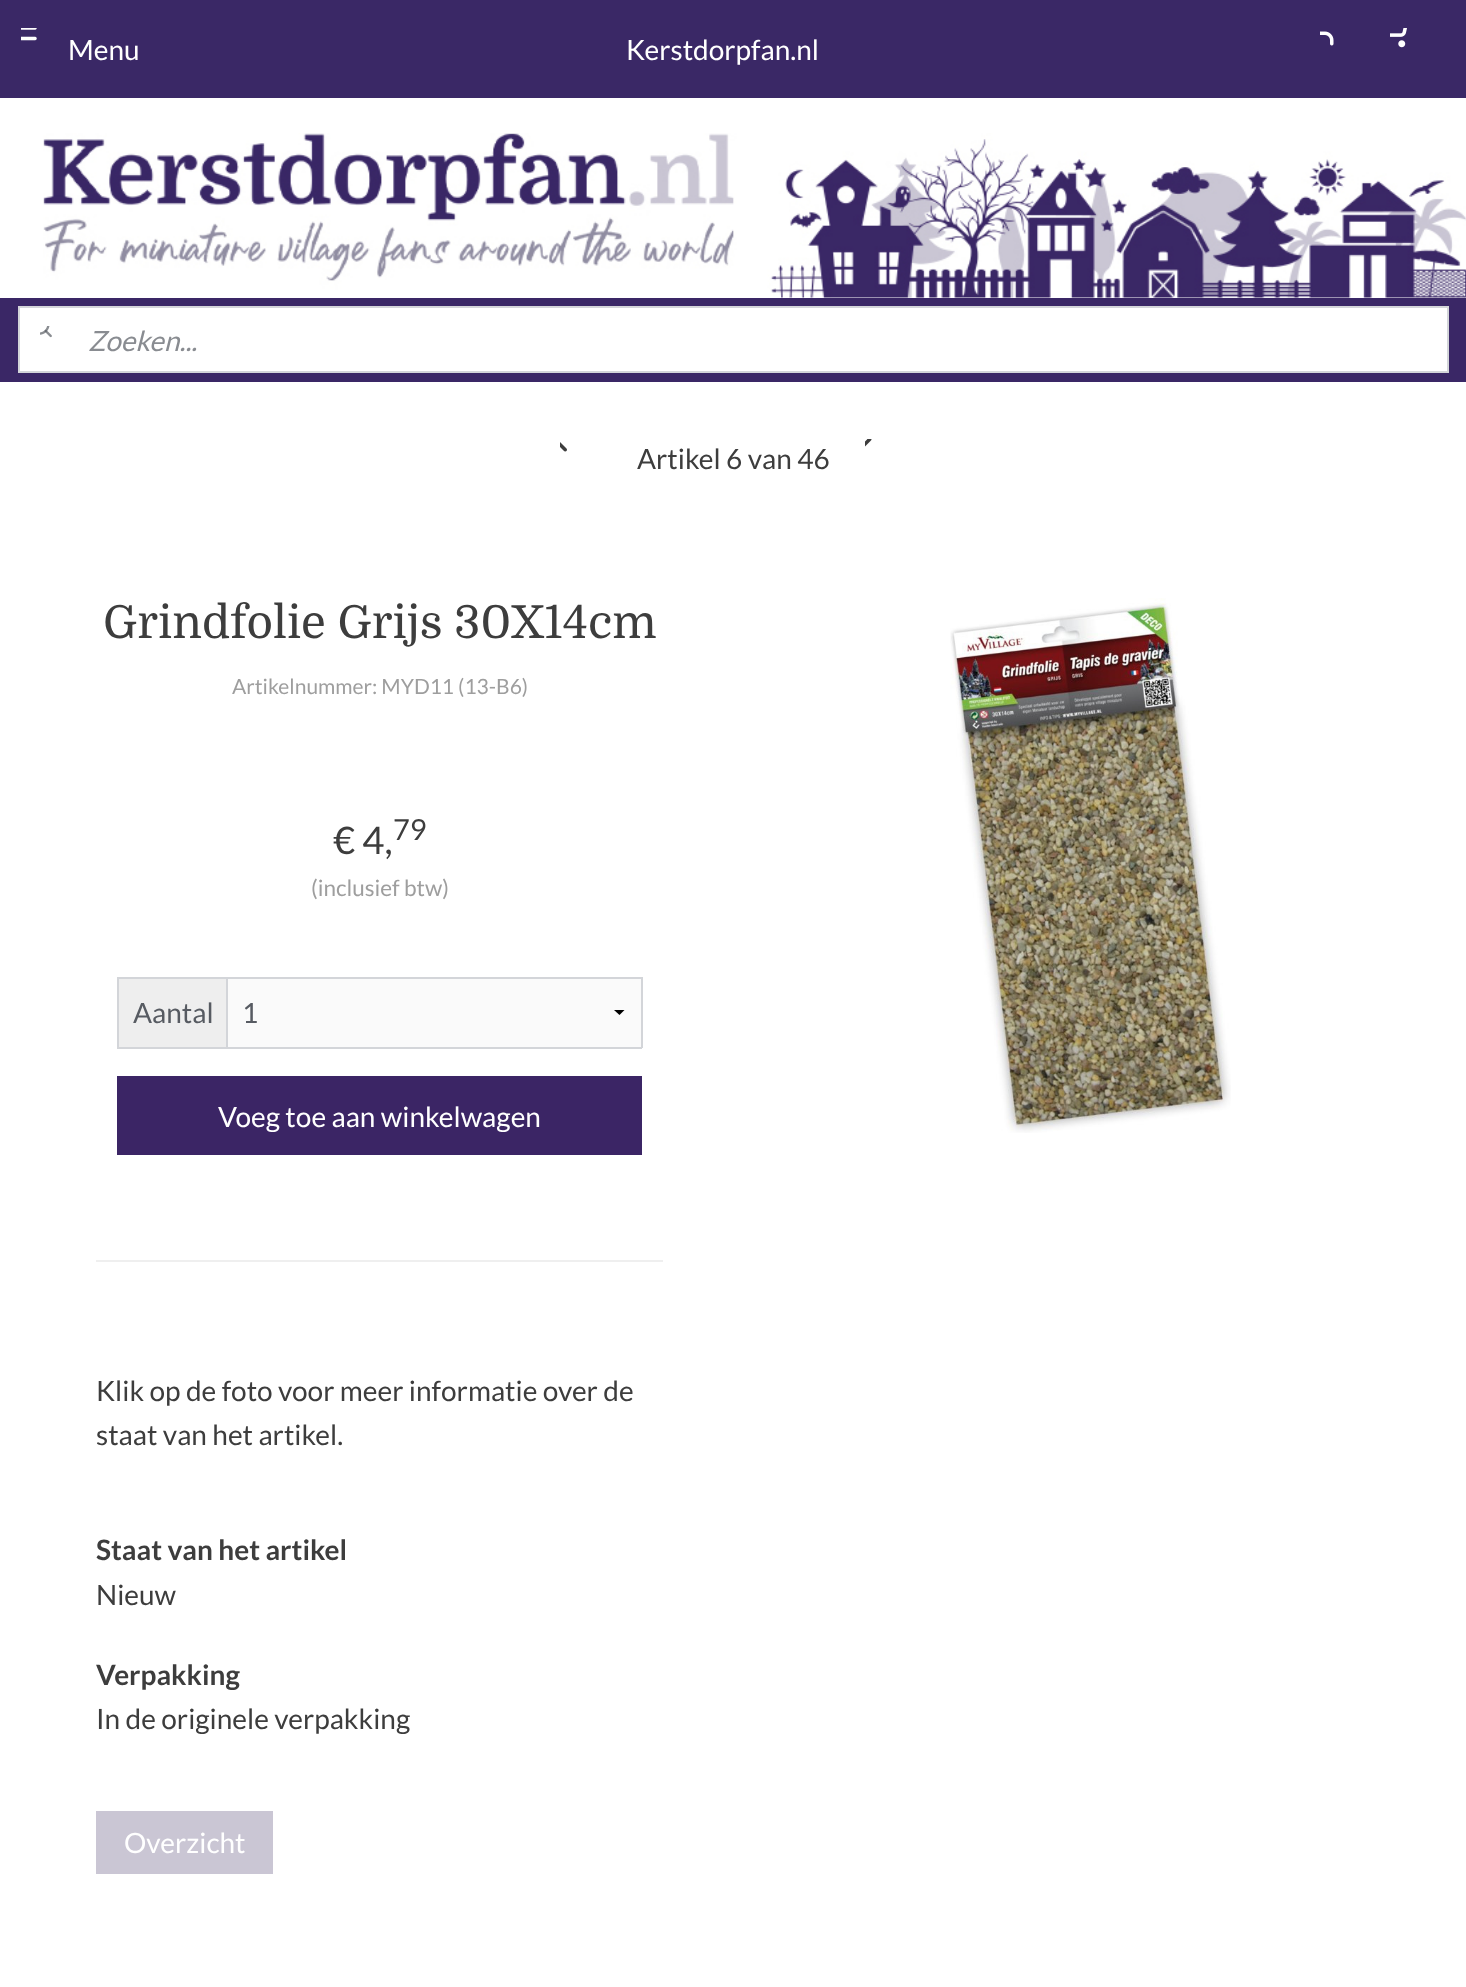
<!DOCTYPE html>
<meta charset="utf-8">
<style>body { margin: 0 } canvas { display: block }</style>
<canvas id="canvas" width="1466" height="1987"></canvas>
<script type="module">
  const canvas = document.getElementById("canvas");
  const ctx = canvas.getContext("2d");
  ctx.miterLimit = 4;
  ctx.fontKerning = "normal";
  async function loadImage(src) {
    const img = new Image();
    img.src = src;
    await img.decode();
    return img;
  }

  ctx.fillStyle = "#ffffff";
  ctx.fillRect(0, 0, 1466, 1987);
  ctx.fillStyle = "#3a2866";
  ctx.fillRect(0, 0, 1466, 98);
  ctx.drawImage(await loadImage("img1.png"), 21, 28, 16, 13);
  ctx.font = "28px Lato";
  ctx.fillStyle = "#ffffff";
  ctx.fillText("Menu", 68, 60);
  ctx.fillText("Kerstdorpfan.nl", 626, 60);
  ctx.drawImage(await loadImage("img2.png"), 1320, 31, 14, 15);
  ctx.drawImage(await loadImage("img3.png"), 1390, 28, 17, 20);
  ctx.drawImage(await loadImage("img4.png"), 43, 133, 1423, 165);
  ctx.fillStyle = "#3a2766";
  ctx.fillRect(0, 298, 1466, 84);
  ctx.fillStyle = "#ffffff";
  ctx.beginPath();
  ctx.rect(19, 307, 1429, 65);
  ctx.fill();
  ctx.strokeStyle = "#d3d5d9";
  ctx.lineWidth = 2;
  ctx.stroke();
  ctx.drawImage(await loadImage("img5.png"), 40, 326, 12, 12);
  ctx.font = "italic 28px Lato";
  ctx.fillStyle = "#898c91";
  ctx.fillText("Zoeken...", 88, 351);
  ctx.drawImage(await loadImage("img6.png"), 560, 442, 7, 10);
  ctx.drawImage(await loadImage("img7.png"), 865, 439, 7, 8);
  ctx.font = "28px Lato";
  ctx.fillStyle = "#3d3d3d";
  ctx.fillText("Artikel 6 van 46", 637, 469);
  ctx.font = "45.5px Domine";
  ctx.fillText("Grindfolie Grijs 30X14cm", 103, 638);
  ctx.font = "21px Lato";
  ctx.fillStyle = "#9e9e9e";
  ctx.fillText("Artikelnummer: MYD11 (13-B6)", 232, 694);
  ctx.font = "38px Lato";
  ctx.fillStyle = "#3d3d3d";
  ctx.fillText("€ 4,", 333, 854);
  ctx.font = "29px Lato";
  ctx.fillText("79", 393, 840);
  ctx.font = "22.5px Lato";
  ctx.fillStyle = "#9e9e9e";
  ctx.fillText("(inclusief btw)", 311, 896);
  ctx.fillStyle = "#d3d5d9";
  ctx.fillRect(226, 977, 2, 70);
  ctx.fillRect(117, 977, 525, 2);
  ctx.fillRect(641, 977, 2, 71);
  ctx.fillRect(117, 1047, 525, 2);
  ctx.fillRect(117, 977, 2, 71);
  ctx.fillStyle = "#eeeeee";
  ctx.fillRect(119, 979, 107, 68);
  ctx.font = "28px Lato";
  ctx.fillStyle = "#575b62";
  ctx.fillText("Aantal", 133, 1023);
  ctx.fillStyle = "#fafafa";
  ctx.fillRect(228, 979, 413, 68);
  ctx.fillStyle = "#000000";
  ctx.beginPath();
  ctx.moveTo(624.5, 1010);
  ctx.lineTo(619.5, 1015);
  ctx.lineTo(614, 1010);
  ctx.closePath();
  ctx.fill();
  ctx.fillStyle = "#575b62";
  ctx.fillText("1", 242, 1023);
  ctx.fillStyle = "#3b2565";
  ctx.fillRect(117, 1076, 525, 79);
  ctx.fillStyle = "#ffffff";
  ctx.fillText("Voeg toe aan winkelwagen", 218, 1127);
  ctx.fillStyle = "#efefef";
  ctx.fillRect(96, 1260, 567, 2);
  ctx.fillStyle = "#3d3d3d";
  ctx.fillText("Klik op de foto voor meer informatie over de", 96, 1401);
  ctx.fillText("staat van het artikel.", 96, 1445);
  ctx.font = "bold 28px Lato";
  ctx.fillText("Staat van het artikel", 96, 1560);
  ctx.font = "28px Lato";
  ctx.fillText("Nieuw", 96, 1605);
  ctx.font = "bold 28px Lato";
  ctx.fillText("Verpakking", 96, 1685);
  ctx.font = "28px Lato";
  ctx.fillText("In de originele verpakking", 96, 1729);
  ctx.fillStyle = "#cac6d4";
  ctx.fillRect(96, 1811, 177, 63);
  ctx.fillStyle = "#ffffff";
  ctx.fillText("Overzicht", 124, 1853);
  ctx.drawImage(await loadImage("img8.png"), 950, 598, 281, 535);
</script>
